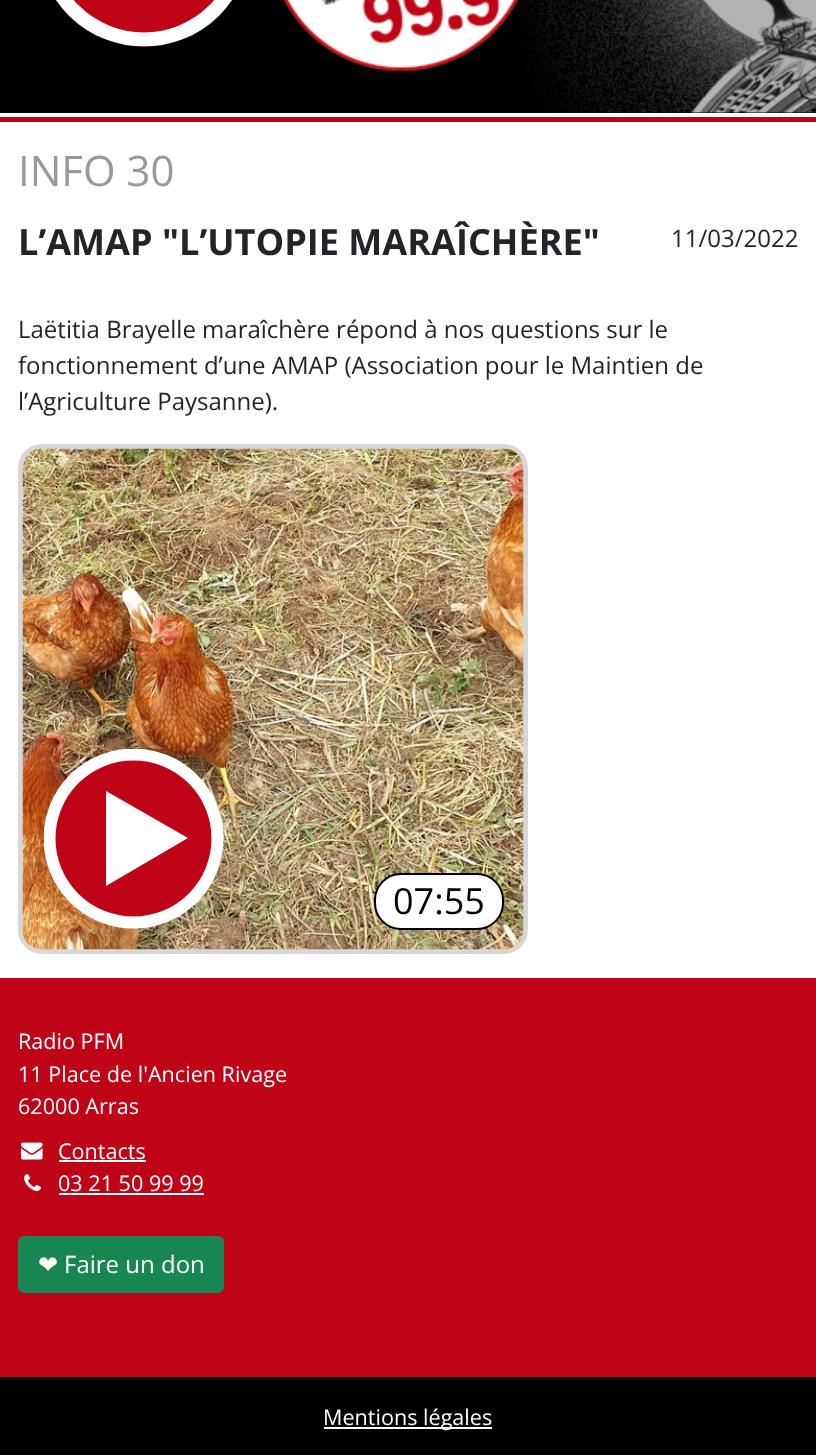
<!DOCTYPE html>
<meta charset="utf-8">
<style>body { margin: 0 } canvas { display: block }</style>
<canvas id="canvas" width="816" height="1455"></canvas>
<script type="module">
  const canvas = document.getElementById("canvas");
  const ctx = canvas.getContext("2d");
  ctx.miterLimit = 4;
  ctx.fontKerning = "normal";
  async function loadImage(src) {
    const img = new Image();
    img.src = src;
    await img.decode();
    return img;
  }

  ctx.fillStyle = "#ffffff";
  ctx.fillRect(0, 0, 816, 1455);
  ctx.fillStyle = "#000000";
  ctx.fillRect(0, 0, 816, 113);
  ctx.drawImage(await loadImage("img1.png"), 517, 0, 299, 113);
  ctx.fillStyle = "#c00418";
  ctx.beginPath();
  ctx.arc(144, -60, 99.5, 0, Math.PI * 2);
  ctx.fill();
  ctx.strokeStyle = "#ffffff";
  ctx.lineWidth = 14.2;
  ctx.stroke();
  ctx.drawImage(await loadImage("img2.png"), 283, 0, 236, 71);
  ctx.fillRect(0, 117, 816, 5);
  ctx.font = "42px Open Sans";
  ctx.fillStyle = "#999999";
  ctx.fillText("INFO 30", 18, 186);
  ctx.font = "bold 36.1px Open Sans";
  ctx.fillStyle = "#212529";
  ctx.fillText("L’AMAP \"L’UTOPIE MARAÎCHÈRE\"", 18, 255);
  ctx.font = "24px Open Sans";
  ctx.fillText("11/03/2022", 671, 247);
  ctx.fillText("Laëtitia Brayelle maraîchère répond à nos questions sur le", 18, 338);
  ctx.fillText("fonctionnement d’une AMAP (Association pour le Maintien de", 18, 374);
  ctx.fillText("l’Agriculture Paysanne).", 18, 410);
  ctx.beginPath();
  ctx.roundRect(20.5, 446.5, 505, 505, 21.5);
  ctx.strokeStyle = "#d7d7d7";
  ctx.lineWidth = 5;
  ctx.stroke();
  ctx.drawImage(await loadImage("img3.png"), 22, 448, 502, 502);
  ctx.fillStyle = "#c00418";
  ctx.beginPath();
  ctx.arc(133.5, 838.5, 84, 0, Math.PI * 2);
  ctx.fill();
  ctx.save();
  ctx.beginPath();
  ctx.rect(44, 749, 180, 180);
  ctx.clip();
  ctx.beginPath();
  ctx.arc(133.5, 838.5, 84, 0, Math.PI * 2);
  ctx.strokeStyle = "#ffffff";
  ctx.lineWidth = 12;
  ctx.stroke();
  ctx.restore();
  ctx.fillStyle = "#ffffff";
  ctx.beginPath();
  ctx.moveTo(106, 886);
  ctx.lineTo(106, 791);
  ctx.lineTo(188, 838);
  ctx.closePath();
  ctx.fill();
  ctx.beginPath();
  ctx.roundRect(375, 874, 128, 55, 26);
  ctx.fill();
  ctx.strokeStyle = "#000000";
  ctx.lineWidth = 2;
  ctx.stroke();
  ctx.font = "36px Open Sans";
  ctx.fillStyle = "#000000";
  ctx.fillText("07:55", 393, 914);
  ctx.fillStyle = "#c00418";
  ctx.fillRect(0, 978, 816, 399);
  ctx.font = "21.6px Open Sans";
  ctx.fillStyle = "#ffffff";
  ctx.fillText("Radio PFM", 18, 1049);
  ctx.fillText("11 Place de l'Ancien Rivage", 18, 1082);
  ctx.fillText("62000 Arras", 18, 1114);
  ctx.drawImage(await loadImage("img4.png"), 21, 1142, 22, 18);
  ctx.fillText("Contacts", 58, 1159);
  ctx.fillRect(59, 1160, 87, 2);
  ctx.drawImage(await loadImage("img5.png"), 24, 1174, 17, 17);
  ctx.fillText("03 21 50 99 99", 58, 1191);
  ctx.fillRect(59, 1193, 145, 2);
  ctx.fillStyle = "#198754";
  ctx.beginPath();
  ctx.roundRect(19, 1237, 204, 55, 5);
  ctx.fill();
  ctx.strokeStyle = "#198754";
  ctx.stroke();
  ctx.font = "24px DejaVu Sans";
  ctx.fillStyle = "#ffffff";
  ctx.fillText("❤", 38, 1273);
  ctx.font = "24px Open Sans";
  ctx.fillText("Faire un don", 64, 1273);
  ctx.fillStyle = "#000000";
  ctx.fillRect(0, 1377, 816, 78);
  ctx.fillStyle = "#ffffff";
  ctx.fillRect(324, 1427, 168, 2);
  ctx.font = "21.6px Open Sans";
  ctx.fillText("Mentions légales", 323, 1425);
</script>
